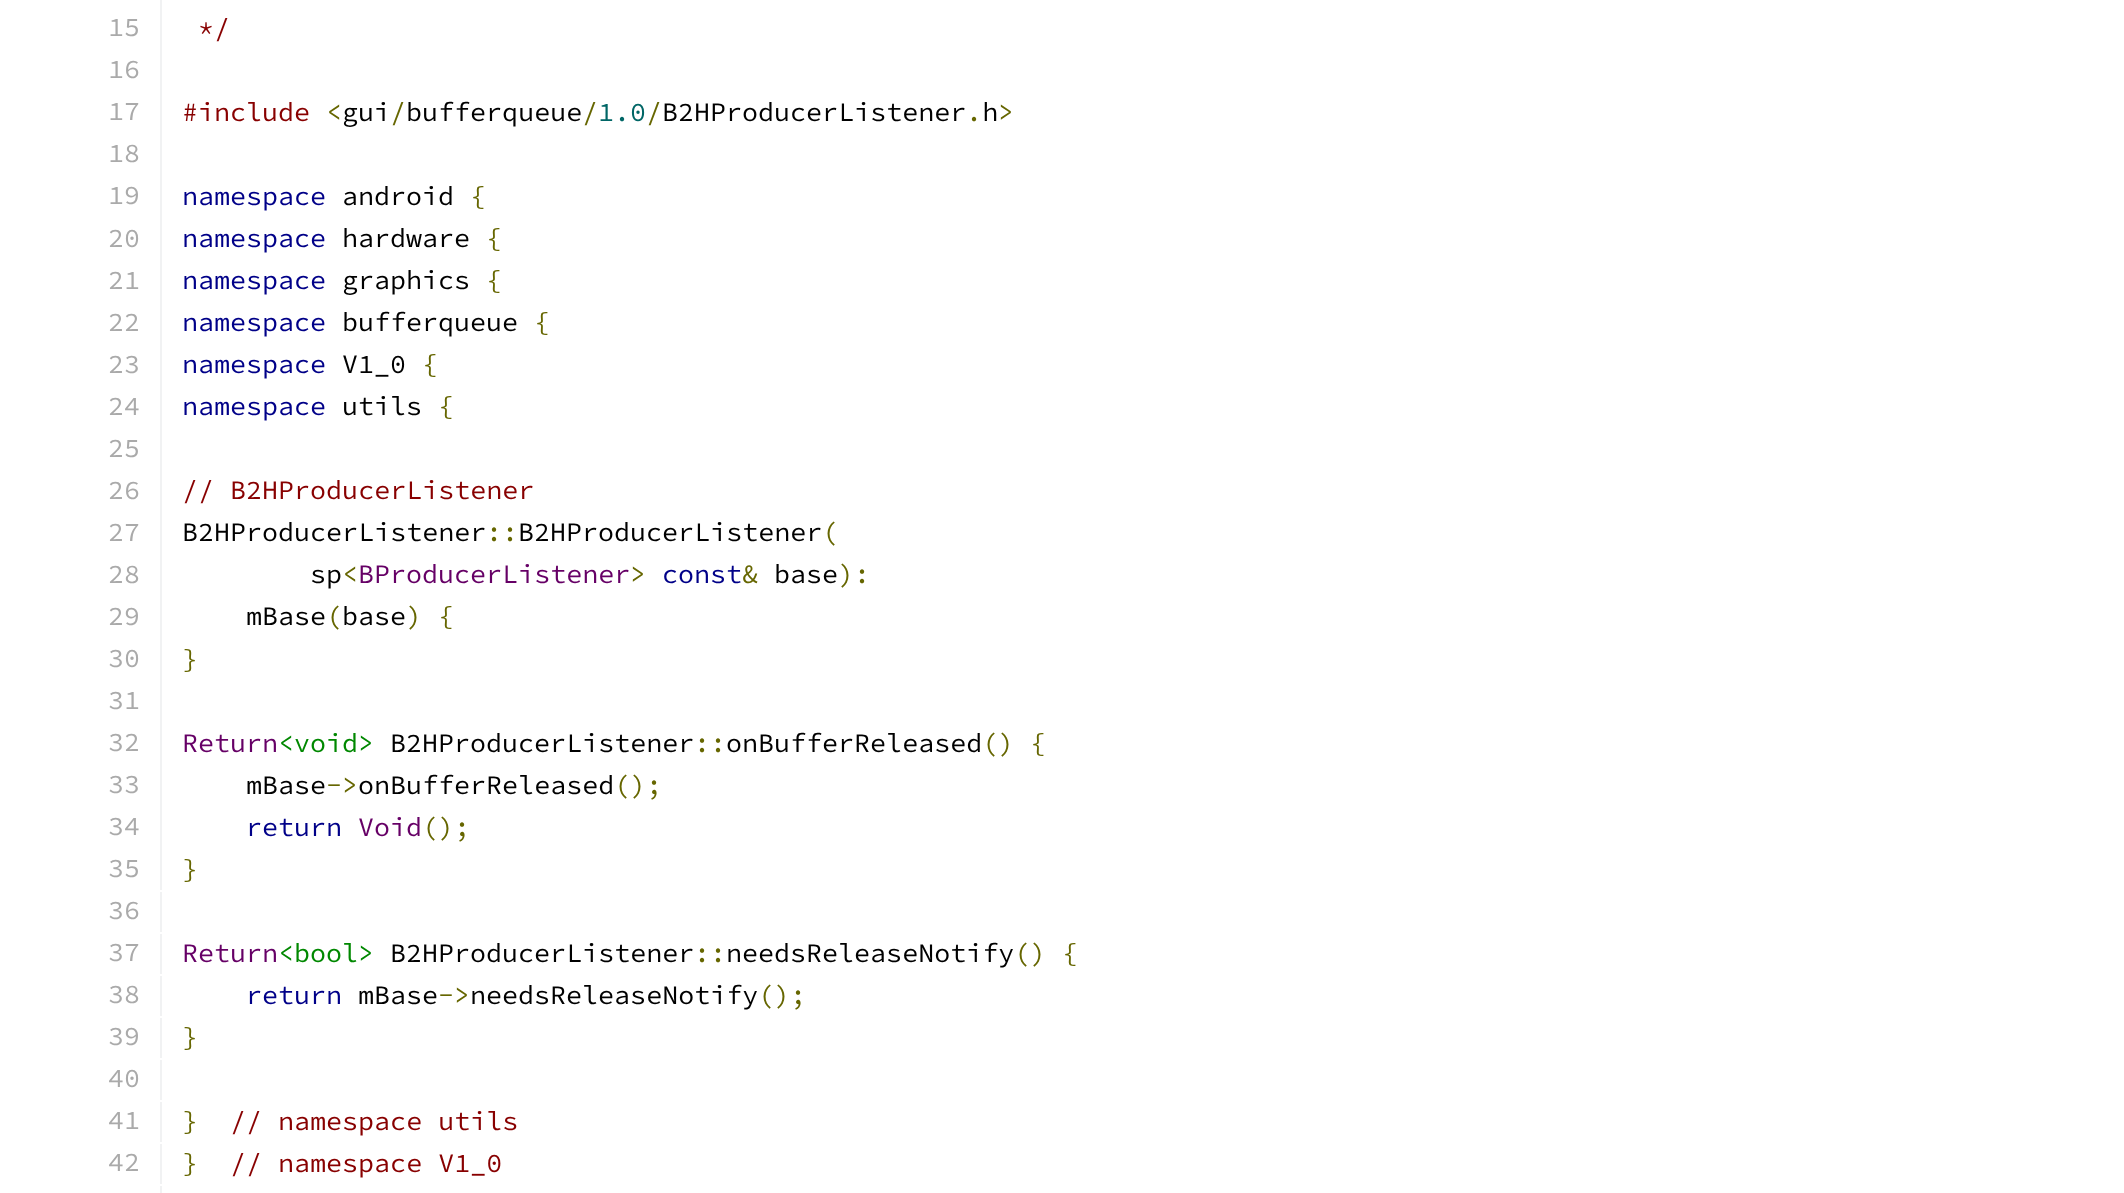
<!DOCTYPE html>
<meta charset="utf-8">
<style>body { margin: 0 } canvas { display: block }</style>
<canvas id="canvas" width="2124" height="1193"></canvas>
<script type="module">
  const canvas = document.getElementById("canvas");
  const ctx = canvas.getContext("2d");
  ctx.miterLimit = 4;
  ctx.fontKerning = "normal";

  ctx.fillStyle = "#ffffff";
  ctx.fillRect(0, 0, 2124, 1193);
  ctx.fillStyle = "#f1f2f3";
  ctx.fillRect(160, 0, 2, 890);
  ctx.font = "200 26.7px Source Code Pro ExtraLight";
  ctx.fillStyle = "#aaaaaa";
  ctx.fillText("15", 108, 36);
  ctx.fillStyle = "#880000";
  ctx.fillText("*/", 198, 37);
  ctx.fillStyle = "#aaaaaa";
  ctx.fillText("16", 108, 78);
  ctx.fillText("17", 108, 120);
  ctx.fillStyle = "#880000";
  ctx.fillText("#include", 182, 121);
  ctx.fillStyle = "#000000";
  ctx.fillText("gui bufferqueue", 342, 121);
  ctx.fillText("B2HProducerListener h", 662, 121);
  ctx.fillStyle = "#666600";
  ctx.fillText("<", 326, 121);
  ctx.fillText("/", 390, 121);
  ctx.fillText("/", 582, 121);
  ctx.fillStyle = "#006666";
  ctx.fillText("1.0", 598, 121);
  ctx.fillStyle = "#666600";
  ctx.fillText("/", 646, 121);
  ctx.fillText(". >", 966, 121);
  ctx.fillStyle = "#aaaaaa";
  ctx.fillText("18", 108, 162);
  ctx.fillText("19", 108, 204);
  ctx.fillStyle = "#000088";
  ctx.fillText("namespace", 182, 205);
  ctx.fillStyle = "#000000";
  ctx.fillText("android", 342, 205);
  ctx.fillStyle = "#666600";
  ctx.fillText("{", 470, 205);
  ctx.fillStyle = "#aaaaaa";
  ctx.fillText("20", 108, 247);
  ctx.fillStyle = "#000088";
  ctx.fillText("namespace", 182, 247);
  ctx.fillStyle = "#000000";
  ctx.fillText("hardware", 342, 247);
  ctx.fillStyle = "#666600";
  ctx.fillText("{", 486, 247);
  ctx.fillStyle = "#aaaaaa";
  ctx.fillText("21", 108, 289);
  ctx.fillStyle = "#000088";
  ctx.fillText("namespace", 182, 289);
  ctx.fillStyle = "#000000";
  ctx.fillText("graphics", 342, 289);
  ctx.fillStyle = "#666600";
  ctx.fillText("{", 486, 289);
  ctx.fillStyle = "#aaaaaa";
  ctx.fillText("22", 108, 331);
  ctx.fillStyle = "#000088";
  ctx.fillText("namespace", 182, 331);
  ctx.fillStyle = "#000000";
  ctx.fillText("bufferqueue", 342, 331);
  ctx.fillStyle = "#666600";
  ctx.fillText("{", 534, 331);
  ctx.fillStyle = "#aaaaaa";
  ctx.fillText("23", 108, 373);
  ctx.fillStyle = "#000088";
  ctx.fillText("namespace", 182, 373);
  ctx.fillStyle = "#000000";
  ctx.fillText("V1_0", 342, 373);
  ctx.fillStyle = "#666600";
  ctx.fillText("{", 422, 373);
  ctx.fillStyle = "#aaaaaa";
  ctx.fillText("24", 108, 415);
  ctx.fillStyle = "#000088";
  ctx.fillText("namespace", 182, 415);
  ctx.fillStyle = "#000000";
  ctx.fillText("utils", 342, 415);
  ctx.fillStyle = "#666600";
  ctx.fillText("{", 438, 415);
  ctx.fillStyle = "#aaaaaa";
  ctx.fillText("25", 108, 457);
  ctx.fillText("26", 108, 499);
  ctx.fillStyle = "#880000";
  ctx.fillText("// B2HProducerListener", 182, 499);
  ctx.fillStyle = "#aaaaaa";
  ctx.fillText("27", 108, 541);
  ctx.fillStyle = "#000000";
  ctx.fillText("B2HProducerListener", 182, 541);
  ctx.fillStyle = "#666600";
  ctx.fillText("::", 486, 541);
  ctx.fillStyle = "#000000";
  ctx.fillText("B2HProducerListener", 518, 541);
  ctx.fillStyle = "#666600";
  ctx.fillText("(", 822, 541);
  ctx.fillStyle = "#aaaaaa";
  ctx.fillText("28", 108, 583);
  ctx.fillStyle = "#000000";
  ctx.fillText("sp", 310, 583);
  ctx.fillStyle = "#666600";
  ctx.fillText("<", 342, 583);
  ctx.fillStyle = "#660066";
  ctx.fillText("BProducerListener", 358, 583);
  ctx.fillStyle = "#666600";
  ctx.fillText(">", 630, 583);
  ctx.fillStyle = "#000088";
  ctx.fillText("const", 662, 583);
  ctx.fillStyle = "#666600";
  ctx.fillText("&", 742, 583);
  ctx.fillStyle = "#000000";
  ctx.fillText("base", 774, 583);
  ctx.fillStyle = "#666600";
  ctx.fillText("):", 838, 583);
  ctx.fillStyle = "#aaaaaa";
  ctx.fillText("29", 108, 625);
  ctx.fillStyle = "#000000";
  ctx.fillText("mBase base", 246, 625);
  ctx.fillStyle = "#666600";
  ctx.fillText("(", 326, 625);
  ctx.fillText(") {", 406, 625);
  ctx.fillStyle = "#aaaaaa";
  ctx.fillText("30", 108, 667);
  ctx.fillStyle = "#666600";
  ctx.fillText("}", 182, 668);
  ctx.fillStyle = "#aaaaaa";
  ctx.fillText("31", 108, 709);
  ctx.fillText("32", 108, 751);
  ctx.fillStyle = "#660066";
  ctx.fillText("Return", 182, 752);
  ctx.fillStyle = "#008800";
  ctx.fillText("<void>", 278, 752);
  ctx.fillStyle = "#000000";
  ctx.fillText("B2HProducerListener", 390, 752);
  ctx.fillStyle = "#666600";
  ctx.fillText("::", 694, 752);
  ctx.fillStyle = "#000000";
  ctx.fillText("onBufferReleased", 726, 752);
  ctx.fillStyle = "#666600";
  ctx.fillText("() {", 982, 752);
  ctx.fillStyle = "#aaaaaa";
  ctx.fillText("33", 108, 793);
  ctx.fillStyle = "#000000";
  ctx.fillText("mBase", 246, 794);
  ctx.fillStyle = "#666600";
  ctx.fillText("->", 326, 794);
  ctx.fillStyle = "#000000";
  ctx.fillText("onBufferReleased", 358, 794);
  ctx.fillStyle = "#666600";
  ctx.fillText("();", 614, 794);
  ctx.fillStyle = "#aaaaaa";
  ctx.fillText("34", 108, 835);
  ctx.fillStyle = "#000088";
  ctx.fillText("return", 246, 836);
  ctx.fillStyle = "#660066";
  ctx.fillText("Void", 358, 836);
  ctx.fillStyle = "#666600";
  ctx.fillText("();", 422, 836);
  ctx.fillStyle = "#aaaaaa";
  ctx.fillText("35", 108, 877);
  ctx.fillStyle = "#666600";
  ctx.fillText("}", 182, 878);
  ctx.fillStyle = "#f1f2f3";
  ctx.fillRect(160, 892, 2, 40);
  ctx.fillStyle = "#aaaaaa";
  ctx.fillText("36", 108, 919);
  ctx.fillStyle = "#f1f2f3";
  ctx.fillRect(160, 934, 2, 40);
  ctx.fillStyle = "#aaaaaa";
  ctx.fillText("37", 108, 961);
  ctx.fillStyle = "#660066";
  ctx.fillText("Return", 182, 962);
  ctx.fillStyle = "#008800";
  ctx.fillText("<bool>", 278, 962);
  ctx.fillStyle = "#000000";
  ctx.fillText("B2HProducerListener", 390, 962);
  ctx.fillStyle = "#666600";
  ctx.fillText("::", 694, 962);
  ctx.fillStyle = "#000000";
  ctx.fillText("needsReleaseNotify", 726, 962);
  ctx.fillStyle = "#666600";
  ctx.fillText("() {", 1014, 962);
  ctx.fillStyle = "#f1f2f3";
  ctx.fillRect(160, 976, 2, 40);
  ctx.fillStyle = "#aaaaaa";
  ctx.fillText("38", 108, 1003);
  ctx.fillStyle = "#000088";
  ctx.fillText("return", 246, 1004);
  ctx.fillStyle = "#000000";
  ctx.fillText("mBase", 358, 1004);
  ctx.fillStyle = "#666600";
  ctx.fillText("->", 438, 1004);
  ctx.fillStyle = "#000000";
  ctx.fillText("needsReleaseNotify", 470, 1004);
  ctx.fillStyle = "#666600";
  ctx.fillText("();", 758, 1004);
  ctx.fillStyle = "#f1f2f3";
  ctx.fillRect(160, 1018, 2, 40);
  ctx.fillStyle = "#aaaaaa";
  ctx.fillText("39", 108, 1045);
  ctx.fillStyle = "#666600";
  ctx.fillText("}", 182, 1046);
  ctx.fillStyle = "#f1f2f3";
  ctx.fillRect(160, 1060, 2, 40);
  ctx.fillStyle = "#aaaaaa";
  ctx.fillText("40", 108, 1087);
  ctx.fillStyle = "#f1f2f3";
  ctx.fillRect(160, 1102, 2, 40);
  ctx.fillStyle = "#aaaaaa";
  ctx.fillText("41", 108, 1129);
  ctx.fillStyle = "#666600";
  ctx.fillText("}", 182, 1130);
  ctx.fillStyle = "#880000";
  ctx.fillText("// namespace utils", 230, 1130);
  ctx.fillStyle = "#f1f2f3";
  ctx.fillRect(160, 1144, 2, 40);
  ctx.fillStyle = "#aaaaaa";
  ctx.fillText("42", 108, 1171);
  ctx.fillStyle = "#666600";
  ctx.fillText("}", 182, 1172);
  ctx.fillStyle = "#880000";
  ctx.fillText("// namespace V1_0", 230, 1172);
  ctx.fillStyle = "#f1f2f3";
  ctx.fillRect(160, 1186, 2, 7);
</script>
